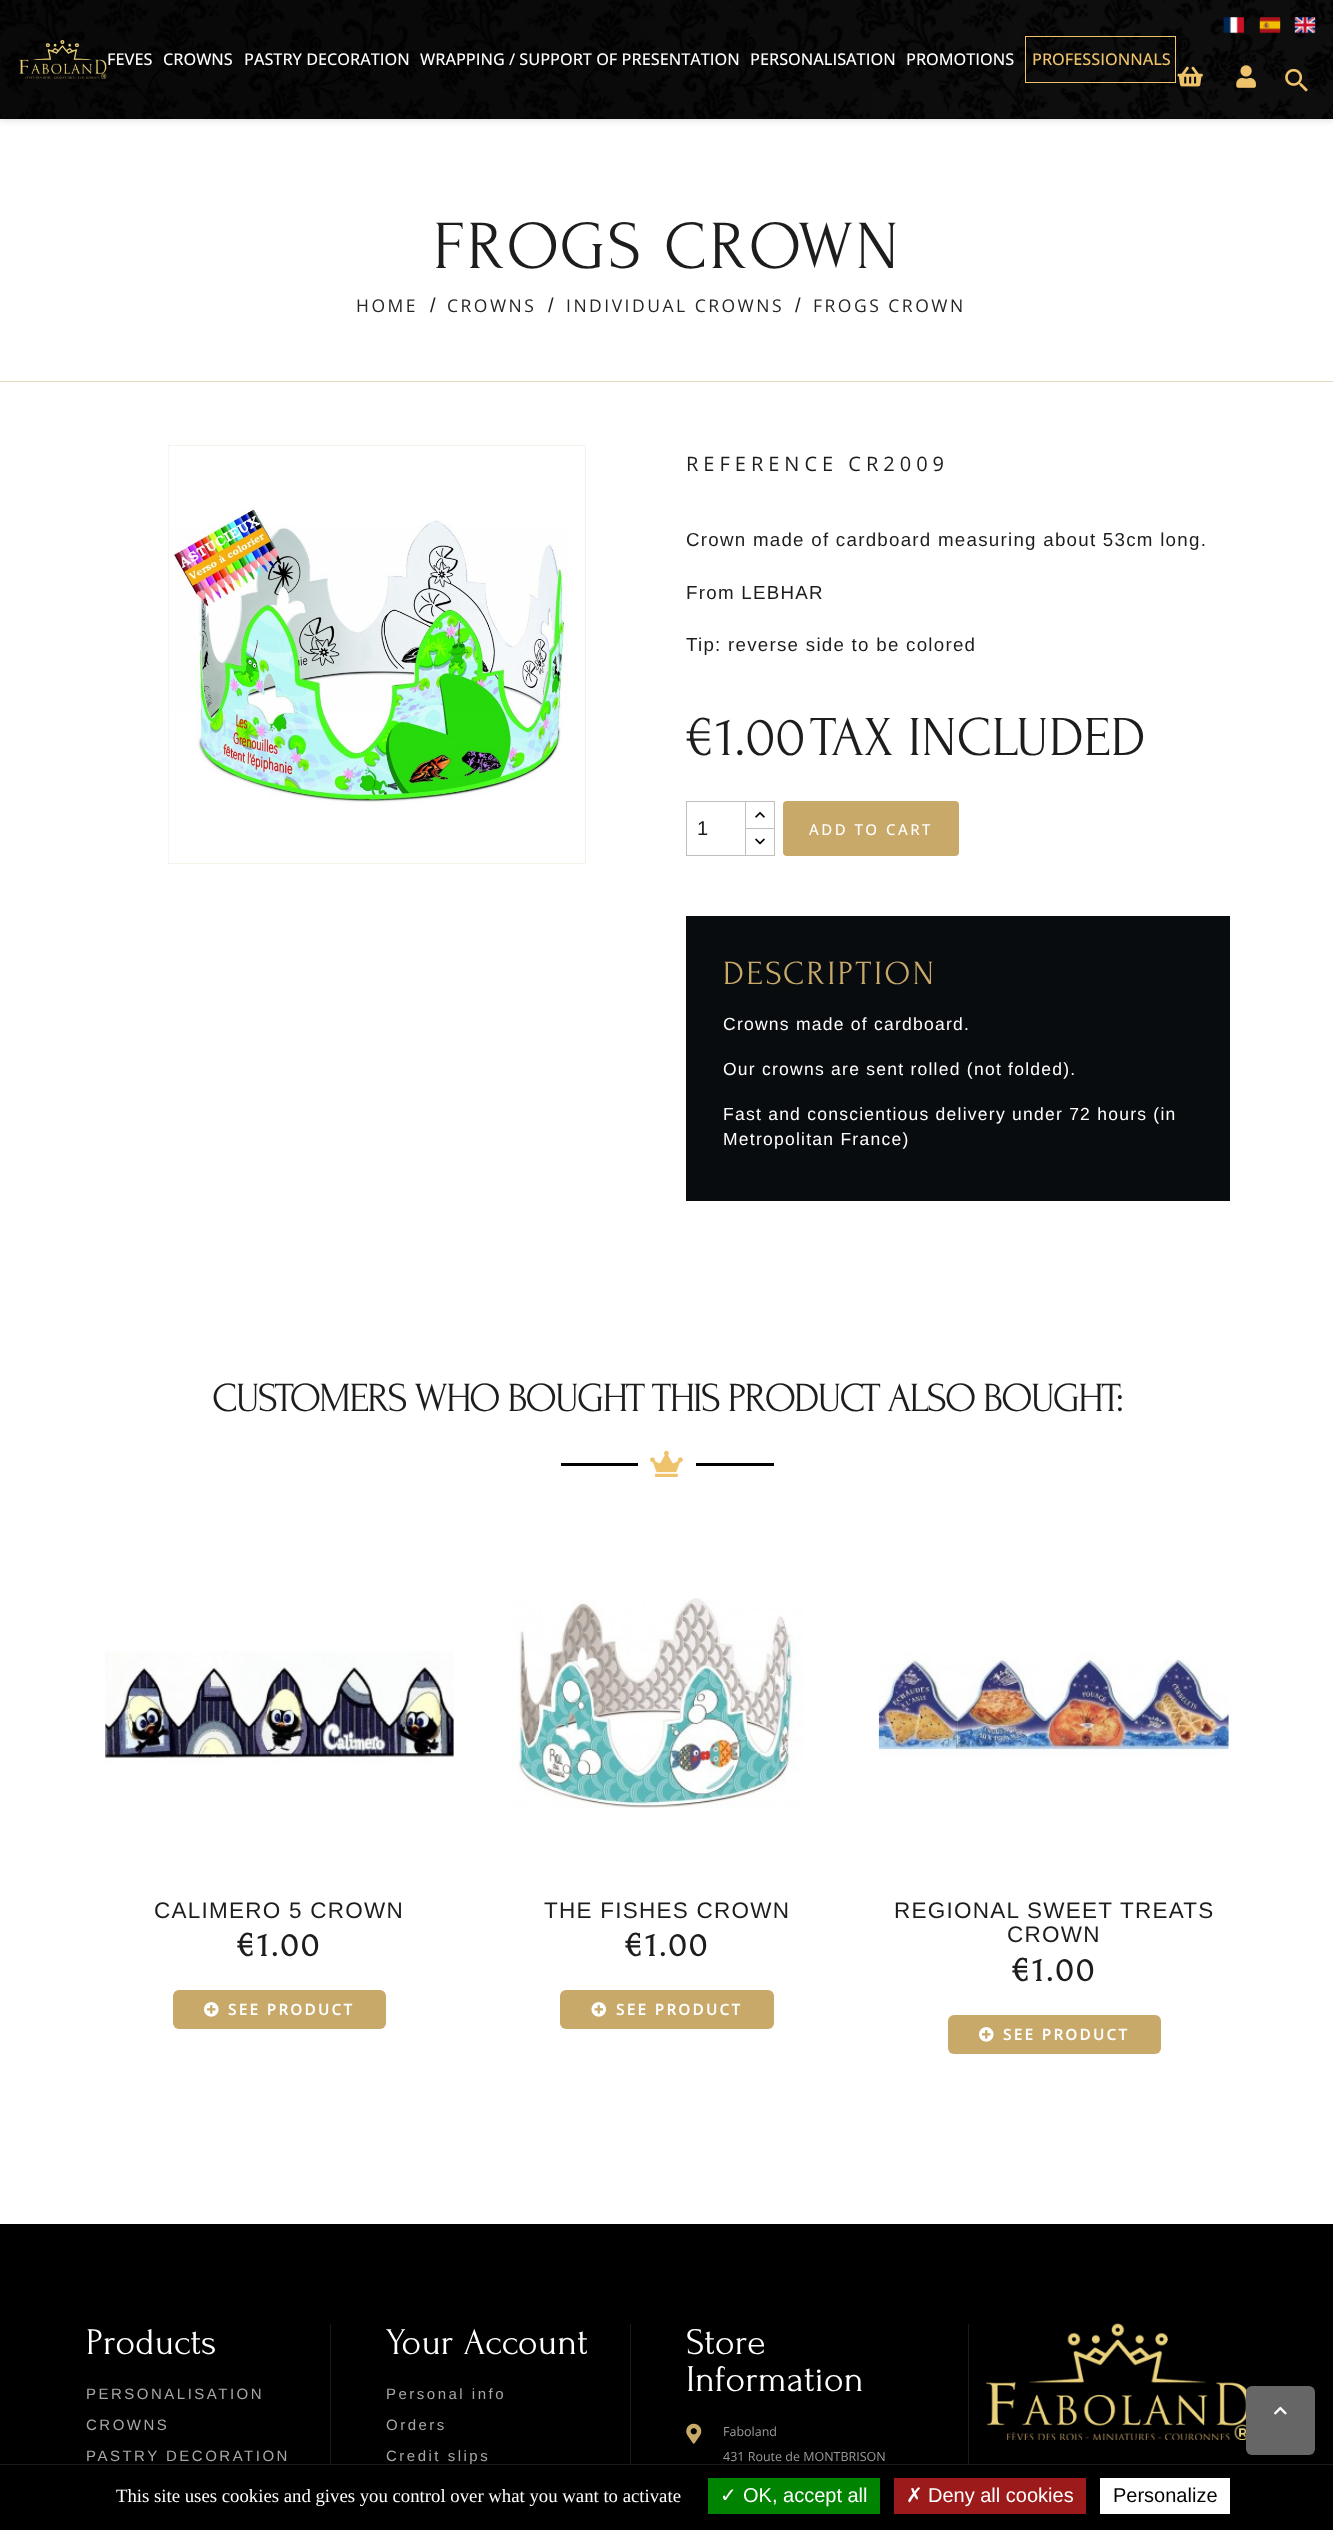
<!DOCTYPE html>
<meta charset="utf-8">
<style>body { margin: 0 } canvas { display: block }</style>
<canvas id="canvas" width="1333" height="2530"></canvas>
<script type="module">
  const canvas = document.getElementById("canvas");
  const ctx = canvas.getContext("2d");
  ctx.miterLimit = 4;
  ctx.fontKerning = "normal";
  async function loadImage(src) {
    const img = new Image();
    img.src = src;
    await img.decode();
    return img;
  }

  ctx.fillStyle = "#ffffff";
  ctx.fillRect(0, 0, 1333, 2530);
  ctx.fillStyle = "rgba(0, 0, 0, 0.11)";
  ctx.filter = "blur(3px)";
  ctx.beginPath();
  ctx.rect(0, 3, 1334, 118);
  ctx.fill();
  ctx.filter = "none";
  ctx.fillStyle = "#000000";
  ctx.fillRect(0, 0, 1333, 119);
  ctx.drawImage(await loadImage("img1.png"), 0, 0, 1333, 119);
  ctx.drawImage(await loadImage("img2.png"), 18, 40, 89, 39);
  ctx.drawImage(await loadImage("img3.png"), 1223, 17, 21, 17);
  ctx.drawImage(await loadImage("img4.png"), 1259, 17, 22, 17);
  ctx.drawImage(await loadImage("img5.png"), 1294, 17, 22, 17);
  ctx.drawImage(await loadImage("img6.png"), 1223, 17, 21, 16);
  ctx.drawImage(await loadImage("img7.png"), 1260, 17, 20, 16);
  ctx.drawImage(await loadImage("img8.png"), 1295, 17, 20, 16);
  ctx.font = "500 16.25px Open Sans";
  ctx.fillStyle = "#ffffff";
  ctx.fillText("FEVES", 107, 65);
  ctx.fillText("CROWNS", 163, 65);
  ctx.fillText("PASTRY DECORATION", 244, 65);
  ctx.fillText("WRAPPING / SUPPORT OF PRESENTATION", 420, 65);
  ctx.fillText("PERSONALISATION", 750, 65);
  ctx.fillText("PROMOTIONS", 906, 65);
  ctx.strokeStyle = "#efc36c";
  ctx.strokeRect(1025.5, 36.5, 150, 46);
  ctx.fillStyle = "#efc36c";
  ctx.fillText("PROFESSIONNALS", 1032, 65);
  ctx.drawImage(await loadImage("img9.png"), 1177, 66, 26, 21);
  ctx.drawImage(await loadImage("img10.png"), 1236, 65, 20, 23);
  ctx.drawImage(await loadImage("img11.png"), 1285, 68, 23, 24);
  ctx.fillStyle = "#e4d8c0";
  ctx.fillRect(0, 381, 1333, 1);
  ctx.letterSpacing = "2.5px";
  ctx.font = "68.75px Forum";
  ctx.fillStyle = "#1d1d1d";
  ctx.fillText("FROGS CROWN", 433, 268);
  ctx.font = "17.5px Open Sans";
  ctx.fillStyle = "#252525";
  ctx.fillText("HOME", 356, 312);
  ctx.letterSpacing = "0px";
  ctx.font = "20px Liberation Sans";
  ctx.fillStyle = "#1d1d1d";
  ctx.fillText("/", 430, 312);
  ctx.letterSpacing = "2.5px";
  ctx.font = "17.5px Open Sans";
  ctx.fillStyle = "#252525";
  ctx.fillText("CROWNS", 447, 312);
  ctx.letterSpacing = "0px";
  ctx.font = "20px Liberation Sans";
  ctx.fillStyle = "#1d1d1d";
  ctx.fillText("/", 548, 312);
  ctx.letterSpacing = "2.5px";
  ctx.font = "17.5px Open Sans";
  ctx.fillStyle = "#252525";
  ctx.fillText("INDIVIDUAL CROWNS", 566, 312);
  ctx.letterSpacing = "0px";
  ctx.font = "20px Liberation Sans";
  ctx.fillStyle = "#1d1d1d";
  ctx.fillText("/", 795, 312);
  ctx.letterSpacing = "2.5px";
  ctx.font = "17.5px Open Sans";
  ctx.fillStyle = "#252525";
  ctx.fillText("FROGS CROWN", 813, 312);
  ctx.strokeStyle = "#f7f2e9";
  ctx.strokeRect(168.5, 445.5, 417, 418);
  ctx.drawImage(await loadImage("img12.png"), 168, 446, 400, 416);
  ctx.letterSpacing = "5px";
  ctx.font = "20px Open Sans";
  ctx.fillStyle = "#1d1d1d";
  ctx.fillText("REFERENCE CR2009", 686, 471);
  ctx.letterSpacing = "1.25px";
  ctx.font = "18.75px Liberation Sans";
  ctx.fillText("Crown made of cardboard measuring about 53cm long.", 686, 546);
  ctx.fillText("From LEBHAR", 686, 599);
  ctx.fillText("Tip: reverse side to be colored", 686, 651);
  ctx.letterSpacing = "0px";
  ctx.font = "56.25px Forum";
  ctx.fillText("€1.00", 686, 755);
  ctx.fillText("TAX INCLUDED", 810, 755);
  ctx.strokeStyle = "#bfbfbf";
  ctx.strokeRect(745.5, 801.5, 29, 28);
  ctx.fillStyle = "#ffffff";
  ctx.fillRect(746, 829, 28, 1);
  ctx.strokeRect(745.5, 828.5, 29, 27);
  ctx.strokeRect(686.5, 801.5, 59, 54);
  ctx.font = "20px Liberation Sans";
  ctx.fillStyle = "#1d1d1d";
  ctx.fillText("1", 697, 835);
  ctx.drawImage(await loadImage("img13.png"), 755, 811, 10, 7);
  ctx.drawImage(await loadImage("img14.png"), 755, 838, 10, 7);
  ctx.fillStyle = "#c8a96a";
  ctx.beginPath();
  ctx.roundRect(783, 801, 176, 55, 4);
  ctx.fill();
  ctx.letterSpacing = "2.5px";
  ctx.font = "500 15px Open Sans";
  ctx.fillStyle = "#ffffff";
  ctx.fillText("ADD TO CART", 809, 835);
  ctx.fillStyle = "#090c0f";
  ctx.fillRect(686, 916, 544, 285);
  ctx.font = "33.75px Forum";
  ctx.fillStyle = "#c8a96a";
  ctx.fillText("DESCRIPTION", 723, 984);
  ctx.letterSpacing = "1.25px";
  ctx.font = "17.5px Liberation Sans";
  ctx.fillStyle = "#ffffff";
  ctx.fillText("Crowns made of cardboard.", 723, 1030);
  ctx.fillText("Our crowns are sent rolled (not folded).", 723, 1075);
  ctx.fillText("Fast and conscientious delivery under 72 hours (in", 723, 1120);
  ctx.fillText("Metropolitan France)", 723, 1145);
  ctx.letterSpacing = "-2px";
  ctx.font = "41.25px Forum";
  ctx.fillStyle = "#1d1d1d";
  ctx.fillText("CUSTOMERS WHO BOUGHT THIS PRODUCT ALSO BOUGHT:", 212, 1411);
  ctx.fillStyle = "#000000";
  ctx.fillRect(561, 1463, 77, 3);
  ctx.drawImage(await loadImage("img15.png"), 650, 1450, 33, 27);
  ctx.fillRect(696, 1463, 78, 3);
  ctx.drawImage(await loadImage("img16.png"), 105, 1651, 349, 113);
  ctx.letterSpacing = "1.25px";
  ctx.font = "22.5px Liberation Sans";
  ctx.fillStyle = "#1d1d1d";
  ctx.fillText("CALIMERO 5 CROWN", 154, 1918);
  ctx.letterSpacing = "2.5px";
  ctx.font = "bold 33.75px Forum";
  ctx.fillText("€1.00", 237, 1956);
  ctx.fillStyle = "#c8a96a";
  ctx.beginPath();
  ctx.roundRect(173, 1990, 213, 39, 6);
  ctx.fill();
  ctx.drawImage(await loadImage("img17.png"), 204, 2002, 15, 15);
  ctx.font = "bold 15px Open Sans";
  ctx.fillStyle = "#ffffff";
  ctx.fillText("SEE PRODUCT", 228, 2015);
  ctx.drawImage(await loadImage("img18.png"), 512, 1598, 291, 210);
  ctx.letterSpacing = "1.25px";
  ctx.font = "22.5px Liberation Sans";
  ctx.fillStyle = "#1d1d1d";
  ctx.fillText("THE FISHES CROWN", 544, 1918);
  ctx.letterSpacing = "2.5px";
  ctx.font = "bold 33.75px Forum";
  ctx.fillText("€1.00", 625, 1956);
  ctx.fillStyle = "#c8a96a";
  ctx.beginPath();
  ctx.roundRect(560, 1990, 214, 39, 6);
  ctx.fill();
  ctx.drawImage(await loadImage("img19.png"), 591, 2002, 15, 15);
  ctx.font = "bold 15px Open Sans";
  ctx.fillStyle = "#ffffff";
  ctx.fillText("SEE PRODUCT", 616, 2015);
  ctx.drawImage(await loadImage("img20.png"), 878, 1652, 351, 104);
  ctx.letterSpacing = "1.25px";
  ctx.font = "22.5px Liberation Sans";
  ctx.fillStyle = "#1d1d1d";
  ctx.fillText("REGIONAL SWEET TREATS", 894, 1918);
  ctx.fillText("CROWN", 1007, 1942);
  ctx.letterSpacing = "2.5px";
  ctx.font = "bold 33.75px Forum";
  ctx.fillText("€1.00", 1012, 1981);
  ctx.fillStyle = "#c8a96a";
  ctx.beginPath();
  ctx.roundRect(948, 2015, 213, 39, 6);
  ctx.fill();
  ctx.drawImage(await loadImage("img17.png"), 979, 2027, 15, 15);
  ctx.font = "bold 15px Open Sans";
  ctx.fillStyle = "#ffffff";
  ctx.fillText("SEE PRODUCT", 1003, 2040);
  ctx.fillStyle = "#000000";
  ctx.fillRect(0, 2224, 1333, 240);
  ctx.letterSpacing = "0px";
  ctx.font = "37.5px Forum";
  ctx.fillStyle = "#ffffff";
  ctx.fillText("Products", 86, 2354);
  ctx.letterSpacing = "2.5px";
  ctx.font = "15px Liberation Sans";
  ctx.fillStyle = "#a7a7a7";
  ctx.fillText("PERSONALISATION", 86, 2399);
  ctx.fillText("CROWNS", 86, 2430);
  ctx.fillText("PASTRY DECORATION", 86, 2461);
  ctx.fillStyle = "#1a1a1a";
  ctx.fillRect(330, 2324, 1, 140);
  ctx.letterSpacing = "0px";
  ctx.font = "37.5px Forum";
  ctx.fillStyle = "#ffffff";
  ctx.fillText("Your Account", 386, 2354);
  ctx.letterSpacing = "2.5px";
  ctx.font = "15px Liberation Sans";
  ctx.fillStyle = "#a7a7a7";
  ctx.fillText("Personal info", 386, 2399);
  ctx.fillText("Orders", 386, 2430);
  ctx.fillText("Credit slips", 386, 2461);
  ctx.fillStyle = "#1a1a1a";
  ctx.fillRect(630, 2324, 1, 140);
  ctx.letterSpacing = "0px";
  ctx.font = "37.5px Forum";
  ctx.fillStyle = "#ffffff";
  ctx.fillText("Store", 686, 2354);
  ctx.fillText("Information", 686, 2391);
  ctx.drawImage(await loadImage("img21.png"), 686, 2423, 16, 21);
  ctx.font = "12.5px Open Sans";
  ctx.fillStyle = "#999999";
  ctx.fillText("Faboland", 723, 2436);
  ctx.fillText("431 Route de MONTBRISON", 723, 2461);
  ctx.fillStyle = "#1a1a1a";
  ctx.fillRect(968, 2324, 1, 140);
  ctx.drawImage(await loadImage("img22.png"), 986, 2323, 261, 117);
  ctx.fillStyle = "#666666";
  ctx.beginPath();
  ctx.roundRect(1246, 2386, 69, 69, 6);
  ctx.fill();
  ctx.drawImage(await loadImage("img23.png"), 1274, 2406, 13, 9);
  ctx.fillStyle = "#000000";
  ctx.fillRect(0, 2465, 1333, 65);
  ctx.fillStyle = "#1a1a1a";
  ctx.fillRect(0, 2464, 1333, 1);
  ctx.font = "18.75px Liberation Serif";
  ctx.fillStyle = "#ffffff";
  ctx.fillText("This site uses cookies and gives you control over what you want to activate", 116, 2502);
  ctx.fillStyle = "#008300";
  ctx.fillRect(708, 2478, 172, 36);
  ctx.font = "20px DejaVu Sans";
  ctx.fillStyle = "#ffffff";
  ctx.fillText("✓", 720, 2502);
  ctx.font = "20px Liberation Sans";
  ctx.fillText("OK, accept all", 743, 2502);
  ctx.fillStyle = "#9c1a1a";
  ctx.fillRect(894, 2478, 192, 36);
  ctx.font = "20px DejaVu Sans";
  ctx.fillStyle = "#ffffff";
  ctx.fillText("✗", 906, 2502);
  ctx.font = "20px Liberation Sans";
  ctx.fillText("Deny all cookies", 928, 2502);
  ctx.fillRect(1100, 2478, 130, 36);
  ctx.fillStyle = "#000000";
  ctx.fillText("Personalize", 1113, 2502);
</script>
